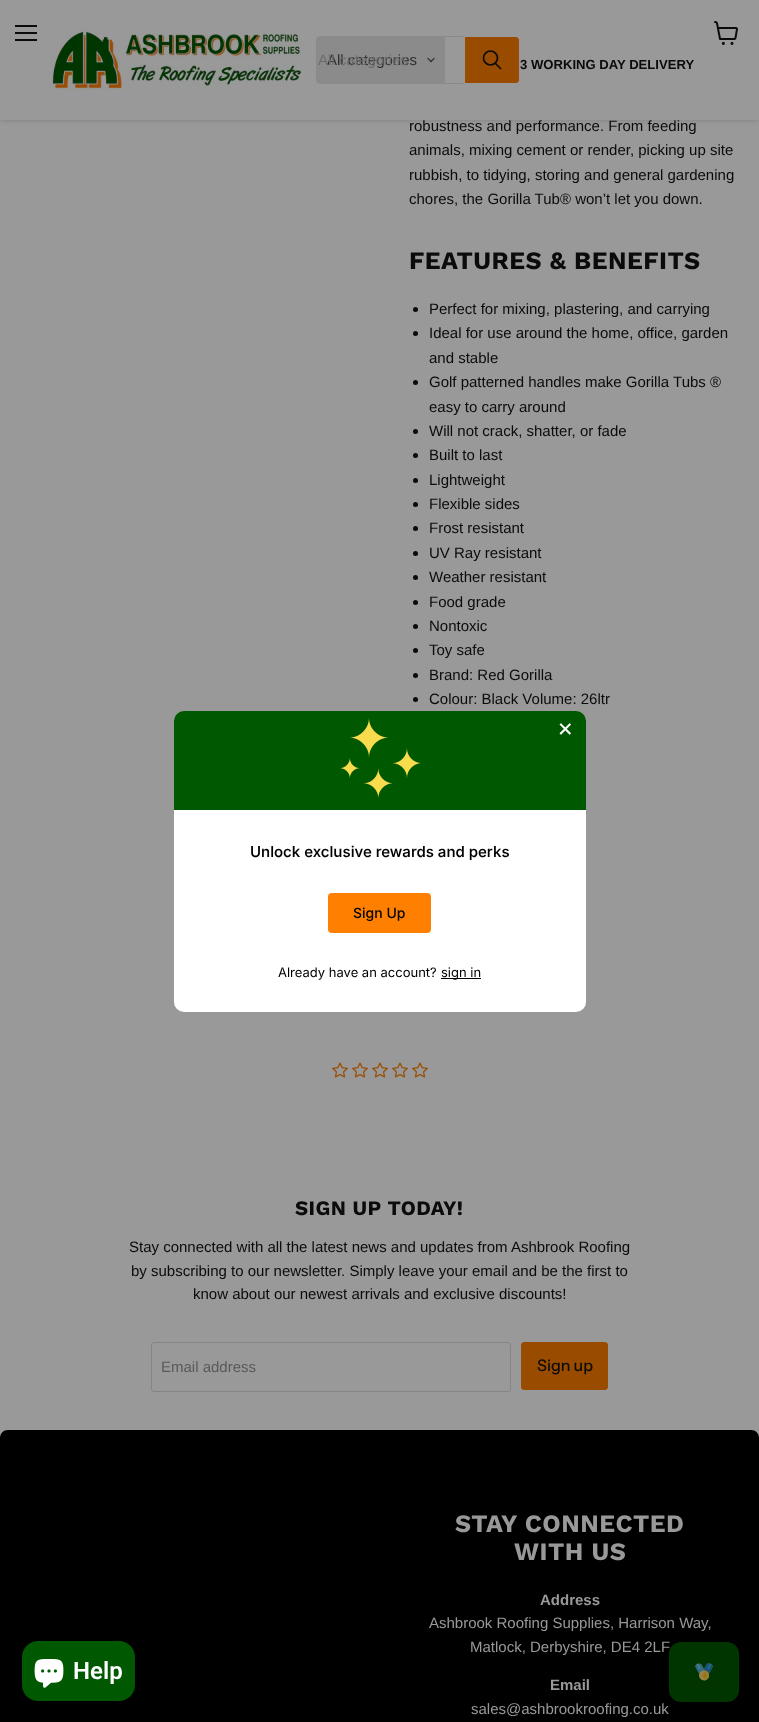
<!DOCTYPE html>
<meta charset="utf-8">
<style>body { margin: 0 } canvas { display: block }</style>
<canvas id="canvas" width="759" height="1722"></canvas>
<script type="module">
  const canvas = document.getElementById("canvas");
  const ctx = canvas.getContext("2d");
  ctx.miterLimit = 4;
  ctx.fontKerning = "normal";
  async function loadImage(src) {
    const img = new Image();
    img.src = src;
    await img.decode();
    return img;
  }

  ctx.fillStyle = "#999999";
  ctx.fillRect(0, 0, 759, 1722);
  ctx.fillStyle = "rgba(77, 77, 77, 0.25)";
  ctx.filter = "blur(2px)";
  ctx.beginPath();
  ctx.rect(0, 1, 759, 120);
  ctx.fill();
  ctx.filter = "none";
  ctx.fillStyle = "#999999";
  ctx.fillRect(0, 0, 759, 120);
  ctx.fillStyle = "#0b0b0b";
  ctx.fillRect(15, 25, 22, 2);
  ctx.fillRect(15, 32, 22, 2);
  ctx.fillRect(15, 39, 22, 2);
  ctx.drawImage(await loadImage("img1.png"), 714, 21, 24, 24);
  ctx.drawImage(await loadImage("img2.png"), 52, 26, 250, 64);
  ctx.beginPath();
  ctx.roundRect(316.5, 36.5, 149, 47, 3.5);
  ctx.strokeStyle = "rgba(77, 77, 77, 0.2)";
  ctx.stroke();
  ctx.fillStyle = "#8b8b8b";
  ctx.beginPath();
  ctx.roundRect(317, 37, 128, 46, [3, 0, 0, 3]);
  ctx.fill();
  ctx.font = "15px Liberation Sans";
  ctx.fillStyle = "#2e2e2e";
  ctx.fillText("All categories", 327, 65);
  ctx.fillStyle = "#6c6c6c";
  ctx.fillText("All categories", 318, 65);
  ctx.drawImage(await loadImage("img3.png"), 427, 57, 8, 6);
  ctx.fillStyle = "#999999";
  ctx.fillRect(463, 37, 2, 46);
  ctx.fillStyle = "#994c00";
  ctx.beginPath();
  ctx.roundRect(465.5, 37.5, 53, 45, [0, 2.5, 2.5, 0]);
  ctx.fill();
  ctx.strokeStyle = "#994c00";
  ctx.stroke();
  ctx.beginPath();
  ctx.moveTo(500.5, 68.5);
  ctx.lineTo(495.5, 63.5);
  ctx.strokeStyle = "#0b0b0b";
  ctx.lineWidth = 1.7;
  ctx.lineCap = "round";
  ctx.stroke();
  ctx.beginPath();
  ctx.arc(490.5, 58, 7, 0, Math.PI * 2);
  ctx.stroke();
  ctx.font = "bold 13.1px Liberation Sans";
  ctx.fillStyle = "#0b0b0b";
  ctx.fillText("3 WORKING DAY DELIVERY", 520, 69);
  ctx.font = "15px Liberation Sans";
  ctx.fillText("robustness and performance. From feeding", 409, 131);
  ctx.fillText("animals, mixing cement or render, picking up site", 409, 155);
  ctx.fillText("rubbish, to tidying, storing and general gardening", 409, 180);
  ctx.fillText("chores, the Gorilla Tub® won’t let you down.", 409, 204);
  ctx.letterSpacing = "0.5px";
  ctx.font = "bold 25px Work Sans";
  ctx.fillText("FEATURES & BENEFITS", 409, 269);
  ctx.beginPath();
  ctx.arc(415.5, 309.5, 2.5, 0, Math.PI * 2);
  ctx.fill();
  ctx.letterSpacing = "0px";
  ctx.font = "15px Liberation Sans";
  ctx.fillText("Perfect for mixing, plastering, and carrying", 429, 314);
  ctx.beginPath();
  ctx.arc(415.5, 333.5, 2.5, 0, Math.PI * 2);
  ctx.fill();
  ctx.fillText("Ideal for use around the home, office, garden", 429, 338);
  ctx.fillText("and stable", 429, 363);
  ctx.beginPath();
  ctx.arc(415.5, 382.5, 2.5, 0, Math.PI * 2);
  ctx.fill();
  ctx.fillText("Golf patterned handles make Gorilla Tubs ®", 429, 387);
  ctx.fillText("easy to carry around", 429, 412);
  ctx.beginPath();
  ctx.arc(415.5, 431.5, 2.5, 0, Math.PI * 2);
  ctx.fill();
  ctx.fillText("Will not crack, shatter, or fade", 429, 436);
  ctx.beginPath();
  ctx.arc(415.5, 455.5, 2.5, 0, Math.PI * 2);
  ctx.fill();
  ctx.fillText("Built to last", 429, 460);
  ctx.beginPath();
  ctx.arc(415.5, 480.5, 2.5, 0, Math.PI * 2);
  ctx.fill();
  ctx.fillText("Lightweight", 429, 485);
  ctx.beginPath();
  ctx.arc(415.5, 504.5, 2.5, 0, Math.PI * 2);
  ctx.fill();
  ctx.fillText("Flexible sides", 429, 509);
  ctx.beginPath();
  ctx.arc(415.5, 528.5, 2.5, 0, Math.PI * 2);
  ctx.fill();
  ctx.fillText("Frost resistant", 429, 533);
  ctx.beginPath();
  ctx.arc(415.5, 553.5, 2.5, 0, Math.PI * 2);
  ctx.fill();
  ctx.fillText("UV Ray resistant", 429, 558);
  ctx.beginPath();
  ctx.arc(415.5, 577.5, 2.5, 0, Math.PI * 2);
  ctx.fill();
  ctx.fillText("Weather resistant", 429, 582);
  ctx.beginPath();
  ctx.arc(415.5, 602.5, 2.5, 0, Math.PI * 2);
  ctx.fill();
  ctx.fillText("Food grade", 429, 607);
  ctx.beginPath();
  ctx.arc(415.5, 626.5, 2.5, 0, Math.PI * 2);
  ctx.fill();
  ctx.fillText("Nontoxic", 429, 631);
  ctx.beginPath();
  ctx.arc(415.5, 650.5, 2.5, 0, Math.PI * 2);
  ctx.fill();
  ctx.fillText("Toy safe", 429, 655);
  ctx.beginPath();
  ctx.arc(415.5, 675.5, 2.5, 0, Math.PI * 2);
  ctx.fill();
  ctx.fillText("Brand: Red Gorilla", 429, 680);
  ctx.beginPath();
  ctx.arc(415.5, 699.5, 2.5, 0, Math.PI * 2);
  ctx.fill();
  ctx.fillText("Colour: Black Volume: 26ltr", 429, 704);
  ctx.drawImage(await loadImage("img4.png"), 332, 1062, 16, 16);
  ctx.drawImage(await loadImage("img4.png"), 352, 1062, 16, 16);
  ctx.drawImage(await loadImage("img4.png"), 372, 1062, 16, 16);
  ctx.drawImage(await loadImage("img4.png"), 392, 1062, 16, 16);
  ctx.drawImage(await loadImage("img4.png"), 412, 1062, 16, 16);
  ctx.letterSpacing = "0.4px";
  ctx.font = "bold 20.5px Work Sans";
  ctx.fillText("SIGN UP TODAY!", 295, 1215);
  ctx.letterSpacing = "0px";
  ctx.font = "15px Liberation Sans";
  ctx.fillText("Stay connected with all the latest news and updates from Ashbrook Roofing", 129, 1252);
  ctx.fillText("by subscribing to our newsletter. Simply leave your email and be the first to", 131, 1276);
  ctx.fillText("know about our newest arrivals and exclusive discounts!", 193, 1299);
  ctx.beginPath();
  ctx.roundRect(151.5, 1342.5, 359, 49, 2.5);
  ctx.strokeStyle = "#858585";
  ctx.lineWidth = 1;
  ctx.stroke();
  ctx.fillStyle = "#595959";
  ctx.fillText("Email address", 161, 1372);
  ctx.fillStyle = "#994c00";
  ctx.beginPath();
  ctx.roundRect(521.5, 1342.5, 86, 47, 2.5);
  ctx.fill();
  ctx.strokeStyle = "#994c00";
  ctx.stroke();
  ctx.font = "500 16px Instrument Sans";
  ctx.fillStyle = "#0b0b0b";
  ctx.fillText("Sign up", 537, 1371);
  ctx.fillStyle = "#000000";
  ctx.beginPath();
  ctx.moveTo(8, 1430);
  ctx.lineTo(751, 1430);
  ctx.bezierCurveTo(755.5, 1430, 759, 1433.5, 759, 1438);
  ctx.lineTo(759, 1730);
  ctx.lineTo(0, 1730);
  ctx.lineTo(0, 1438);
  ctx.bezierCurveTo(0, 1433.5, 3.5, 1430, 8, 1430);
  ctx.closePath();
  ctx.fill();
  ctx.letterSpacing = "0.5px";
  ctx.font = "bold 25px Work Sans";
  ctx.fillStyle = "#999999";
  ctx.fillText("STAY CONNECTED", 455, 1532);
  ctx.fillText("WITH US", 514, 1560);
  ctx.letterSpacing = "0px";
  ctx.font = "bold 15px Liberation Sans";
  ctx.fillText("Address", 540, 1605);
  ctx.font = "15px Liberation Sans";
  ctx.fillText("Ashbrook Roofing Supplies, Harrison Way,", 429, 1628);
  ctx.fillText("Matlock, Derbyshire, DE4 2LF", 470, 1652);
  ctx.font = "bold 15px Liberation Sans";
  ctx.fillText("Email", 550, 1690);
  ctx.font = "15px Liberation Sans";
  ctx.fillText("sales@ashbrookroofing.co.uk", 471, 1714);
  ctx.fillStyle = "#005900";
  ctx.beginPath();
  ctx.roundRect(174, 711, 412, 99, [10, 10, 0, 0]);
  ctx.fill();
  ctx.drawImage(await loadImage("img5.png"), 340, 718, 80, 80);
  ctx.fillStyle = "#ffffff";
  ctx.beginPath();
  ctx.roundRect(174, 810, 412, 202, [0, 0, 10, 10]);
  ctx.fill();
  ctx.font = "25px Inter";
  ctx.fillText("×", 557, 736);
  ctx.font = "500 15px Inter";
  ctx.fillStyle = "#000000";
  ctx.fillText("Unlock exclusive rewards and perks", 250, 857);
  ctx.fillStyle = "#ff7f00";
  ctx.beginPath();
  ctx.roundRect(328, 893, 103, 40, 4);
  ctx.fill();
  ctx.font = "500 14px 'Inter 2'";
  ctx.fillStyle = "#000000";
  ctx.fillText("Sign Up", 353, 918);
  ctx.font = "13px Inter";
  ctx.fillText("Already have an account?", 278, 977);
  ctx.fillRect(441, 978, 40, 1);
  ctx.fillText("sign in", 441, 977);
  ctx.fillStyle = "#003500";
  ctx.beginPath();
  ctx.roundRect(669, 1642, 70, 60, 12);
  ctx.fill();
  ctx.drawImage(await loadImage("img6.png"), 695, 1663, 18, 18);
  ctx.fillStyle = "#005900";
  ctx.beginPath();
  ctx.roundRect(22, 1641, 113, 60, 16);
  ctx.fill();
  ctx.drawImage(await loadImage("img7.png"), 34, 1659, 30, 29);
  ctx.font = "600 24px Roboto";
  ctx.fillStyle = "#ffffff";
  ctx.fillText("Help", 73, 1679);
</script>
